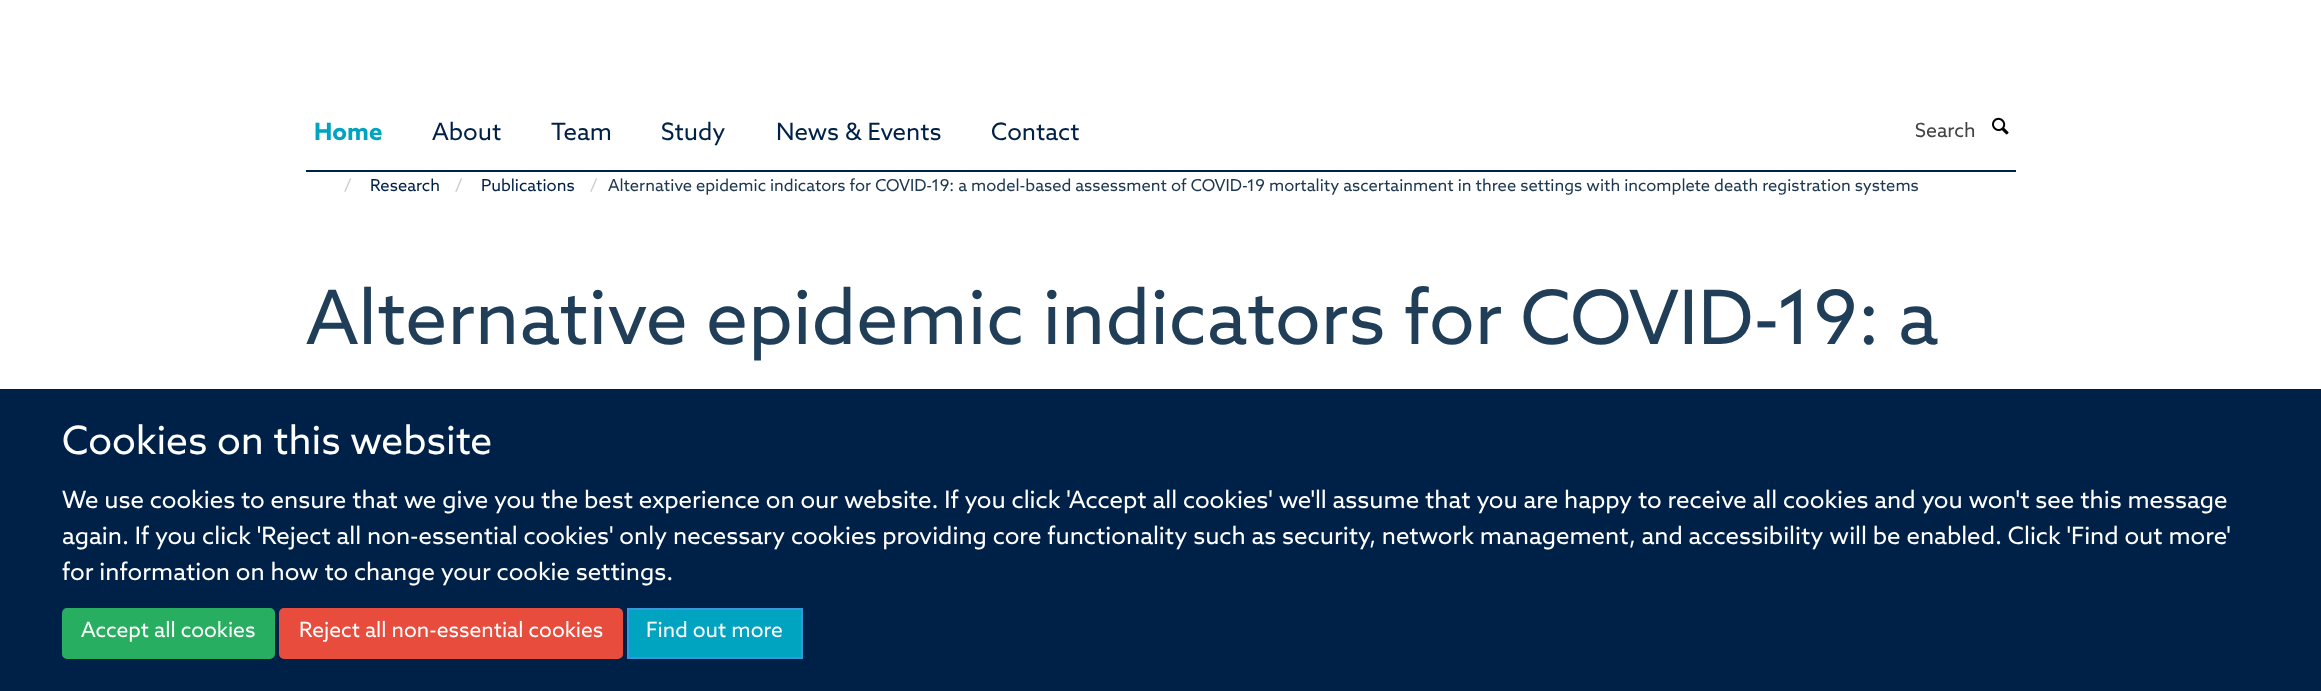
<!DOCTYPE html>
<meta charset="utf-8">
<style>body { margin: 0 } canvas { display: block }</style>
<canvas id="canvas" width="2321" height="691"></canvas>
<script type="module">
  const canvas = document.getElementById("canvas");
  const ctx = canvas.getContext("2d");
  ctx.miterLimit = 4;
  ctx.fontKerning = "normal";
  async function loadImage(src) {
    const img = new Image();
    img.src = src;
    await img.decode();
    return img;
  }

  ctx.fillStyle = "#ffffff";
  ctx.fillRect(0, 0, 2321, 691);
  ctx.fillStyle = "#002147";
  ctx.fillRect(306, 170, 1710, 2);
  ctx.font = "bold 24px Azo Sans";
  ctx.fillStyle = "#00a3c0";
  ctx.fillText("Home", 314, 140);
  ctx.font = "24px Azo Sans";
  ctx.fillStyle = "#002147";
  ctx.fillText("About", 432, 140);
  ctx.fillText("Team", 551, 140);
  ctx.fillText("Study", 661, 140);
  ctx.fillText("News & Events", 776, 140);
  ctx.fillText("Contact", 991, 140);
  ctx.font = "19.5px Azo Sans";
  ctx.fillStyle = "#444444";
  ctx.fillText("Search", 1915, 137);
  ctx.drawImage(await loadImage("img1.png"), 1992, 117, 17, 18);
  ctx.font = "16.5px Azo Sans";
  ctx.fillStyle = "#cccccc";
  ctx.fillText("/", 344, 191);
  ctx.fillStyle = "#002147";
  ctx.fillText("Research", 370, 191);
  ctx.fillStyle = "#cccccc";
  ctx.fillText("/", 455, 191);
  ctx.fillStyle = "#002147";
  ctx.fillText("Publications", 481, 191);
  ctx.fillStyle = "#cccccc";
  ctx.fillText("/", 590, 191);
  ctx.fillStyle = "#1d3850";
  ctx.fillText("Alternative epidemic indicators for COVID-19: a model-based assessment of COVID-19 mortality ascertainment in three settings with incomplete death registration systems", 608, 191);
  ctx.font = "75px Azo Sans";
  ctx.fillStyle = "#203e58";
  ctx.fillText("Alternative epidemic indicators for COVID-19: a", 306, 344);
  ctx.fillStyle = "#002147";
  ctx.fillRect(0, 389, 2321, 302);
  ctx.font = "39px Azo Sans";
  ctx.fillStyle = "#ffffff";
  ctx.fillText("Cookies on this website", 62, 454);
  ctx.font = "24px Azo Sans";
  ctx.fillText("We use cookies to ensure that we give you the best experience on our website. If you click 'Accept all cookies' we'll assume that you are happy to receive all cookies and you won't see this message", 62, 508);
  ctx.fillText("again. If you click 'Reject all non-essential cookies' only necessary cookies providing core functionality such as security, network management, and accessibility will be enabled. Click 'Find out more'", 62, 544);
  ctx.fillText("for information on how to change your cookie settings.", 62, 580);
  ctx.fillStyle = "#27ae60";
  ctx.beginPath();
  ctx.roundRect(63, 609, 211, 49, 4);
  ctx.fill();
  ctx.strokeStyle = "#27ae60";
  ctx.lineWidth = 2;
  ctx.stroke();
  ctx.font = "21px Azo Sans";
  ctx.fillStyle = "#ffffff";
  ctx.fillText("Accept all cookies", 81, 637);
  ctx.fillStyle = "#e74c3c";
  ctx.beginPath();
  ctx.roundRect(280, 609, 342, 49, 4);
  ctx.fill();
  ctx.strokeStyle = "#e74c3c";
  ctx.stroke();
  ctx.fillStyle = "#ffffff";
  ctx.fillText("Reject all non-essential cookies", 299, 637);
  ctx.fillStyle = "#00a3c0";
  ctx.beginPath();
  ctx.rect(628, 609, 174, 49);
  ctx.fill();
  ctx.strokeStyle = "#3498db";
  ctx.stroke();
  ctx.fillStyle = "#ffffff";
  ctx.fillText("Find out more", 646, 637);
</script>
